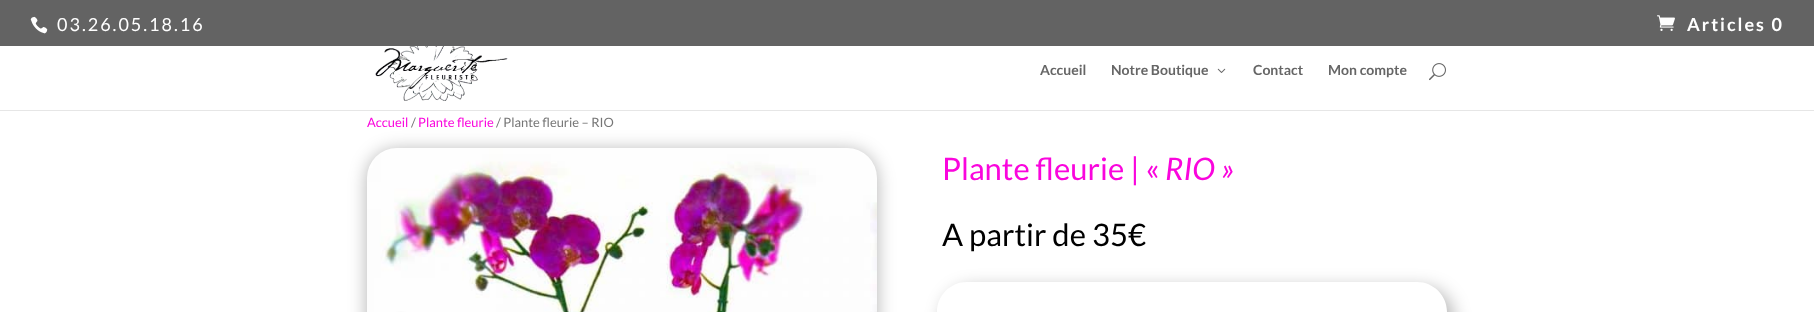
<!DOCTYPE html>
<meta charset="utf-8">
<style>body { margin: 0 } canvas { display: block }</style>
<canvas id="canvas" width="1814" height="312"></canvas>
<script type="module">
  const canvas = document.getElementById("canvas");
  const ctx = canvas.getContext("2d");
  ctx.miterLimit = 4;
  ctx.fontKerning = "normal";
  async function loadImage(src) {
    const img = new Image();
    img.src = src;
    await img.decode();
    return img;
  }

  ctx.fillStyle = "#ffffff";
  ctx.fillRect(0, 0, 1814, 312);
  ctx.fillStyle = "#636363";
  ctx.fillRect(0, 0, 1814, 46);
  ctx.drawImage(await loadImage("img1.png"), 30, 16, 18, 18);
  ctx.letterSpacing = "2px";
  ctx.font = "18px Lato";
  ctx.fillStyle = "#ffffff";
  ctx.fillText("03.26.05.18.16", 57, 31);
  ctx.drawImage(await loadImage("img2.png"), 1657, 15, 18, 16);
  ctx.font = "bold 18px Lato";
  ctx.fillText("Articles 0", 1687, 31);
  ctx.fillStyle = "#e6e6e6";
  ctx.fillRect(0, 110, 1814, 1);
  ctx.drawImage(await loadImage("img3.png"), 375, 46, 133, 55);
  ctx.letterSpacing = "0px";
  ctx.font = "bold 14px Lato";
  ctx.fillStyle = "#666666";
  ctx.fillText("Accueil", 1040, 75);
  ctx.fillText("Notre Boutique", 1111, 75);
  ctx.drawImage(await loadImage("img4.png"), 1217, 68, 9, 5);
  ctx.fillText("Contact", 1253, 75);
  ctx.fillText("Mon compte", 1328, 75);
  ctx.drawImage(await loadImage("img5.png"), 1429, 63, 17, 18);
  ctx.font = "12.9px Lato";
  ctx.fillStyle = "#fa05dd";
  ctx.fillText("Accueil", 367, 127);
  ctx.fillStyle = "#767676";
  ctx.fillText("/", 411, 127);
  ctx.fillStyle = "#fa05dd";
  ctx.fillText("Plante fleurie", 418, 127);
  ctx.fillStyle = "#767676";
  ctx.fillText("/ Plante fleurie – RIO", 496, 127);
  ctx.fillStyle = "rgba(0, 0, 0, 0.3)";
  ctx.filter = "blur(9px)";
  ctx.beginPath();
  ctx.roundRect(367, 150, 510, 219, 30);
  ctx.fill();
  ctx.filter = "none";
  ctx.drawImage(await loadImage("img6.png"), 367, 148, 510, 164);
  ctx.font = "31px Lato";
  ctx.fillStyle = "#fa05dd";
  ctx.fillText("Plante fleurie | «", 942, 180);
  ctx.font = "italic 31px Lato";
  ctx.fillText("RIO »", 1165, 180);
  ctx.font = "31px Lato";
  ctx.fillStyle = "#000000";
  ctx.fillText("A partir de 35€", 942, 246);
  ctx.save();
  ctx.beginPath();
  ctx.moveTo(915, 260);
  ctx.lineTo(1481, 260);
  ctx.lineTo(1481, 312);
  ctx.lineTo(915, 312);
  ctx.closePath();
  ctx.moveTo(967, 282);
  ctx.lineTo(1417, 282);
  ctx.bezierCurveTo(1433.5, 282, 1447, 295.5, 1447, 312);
  ctx.lineTo(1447, 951);
  ctx.bezierCurveTo(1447, 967.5, 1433.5, 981, 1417, 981);
  ctx.lineTo(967, 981);
  ctx.bezierCurveTo(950.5, 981, 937, 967.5, 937, 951);
  ctx.lineTo(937, 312);
  ctx.bezierCurveTo(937, 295.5, 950.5, 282, 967, 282);
  ctx.closePath();
  ctx.clip("evenodd");
  ctx.fillStyle = "rgba(0, 0, 0, 0.3)";
  ctx.filter = "blur(9px)";
  ctx.beginPath();
  ctx.roundRect(943, 288, 510, 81, 30);
  ctx.fill();
  ctx.filter = "none";
  ctx.restore();
</script>
